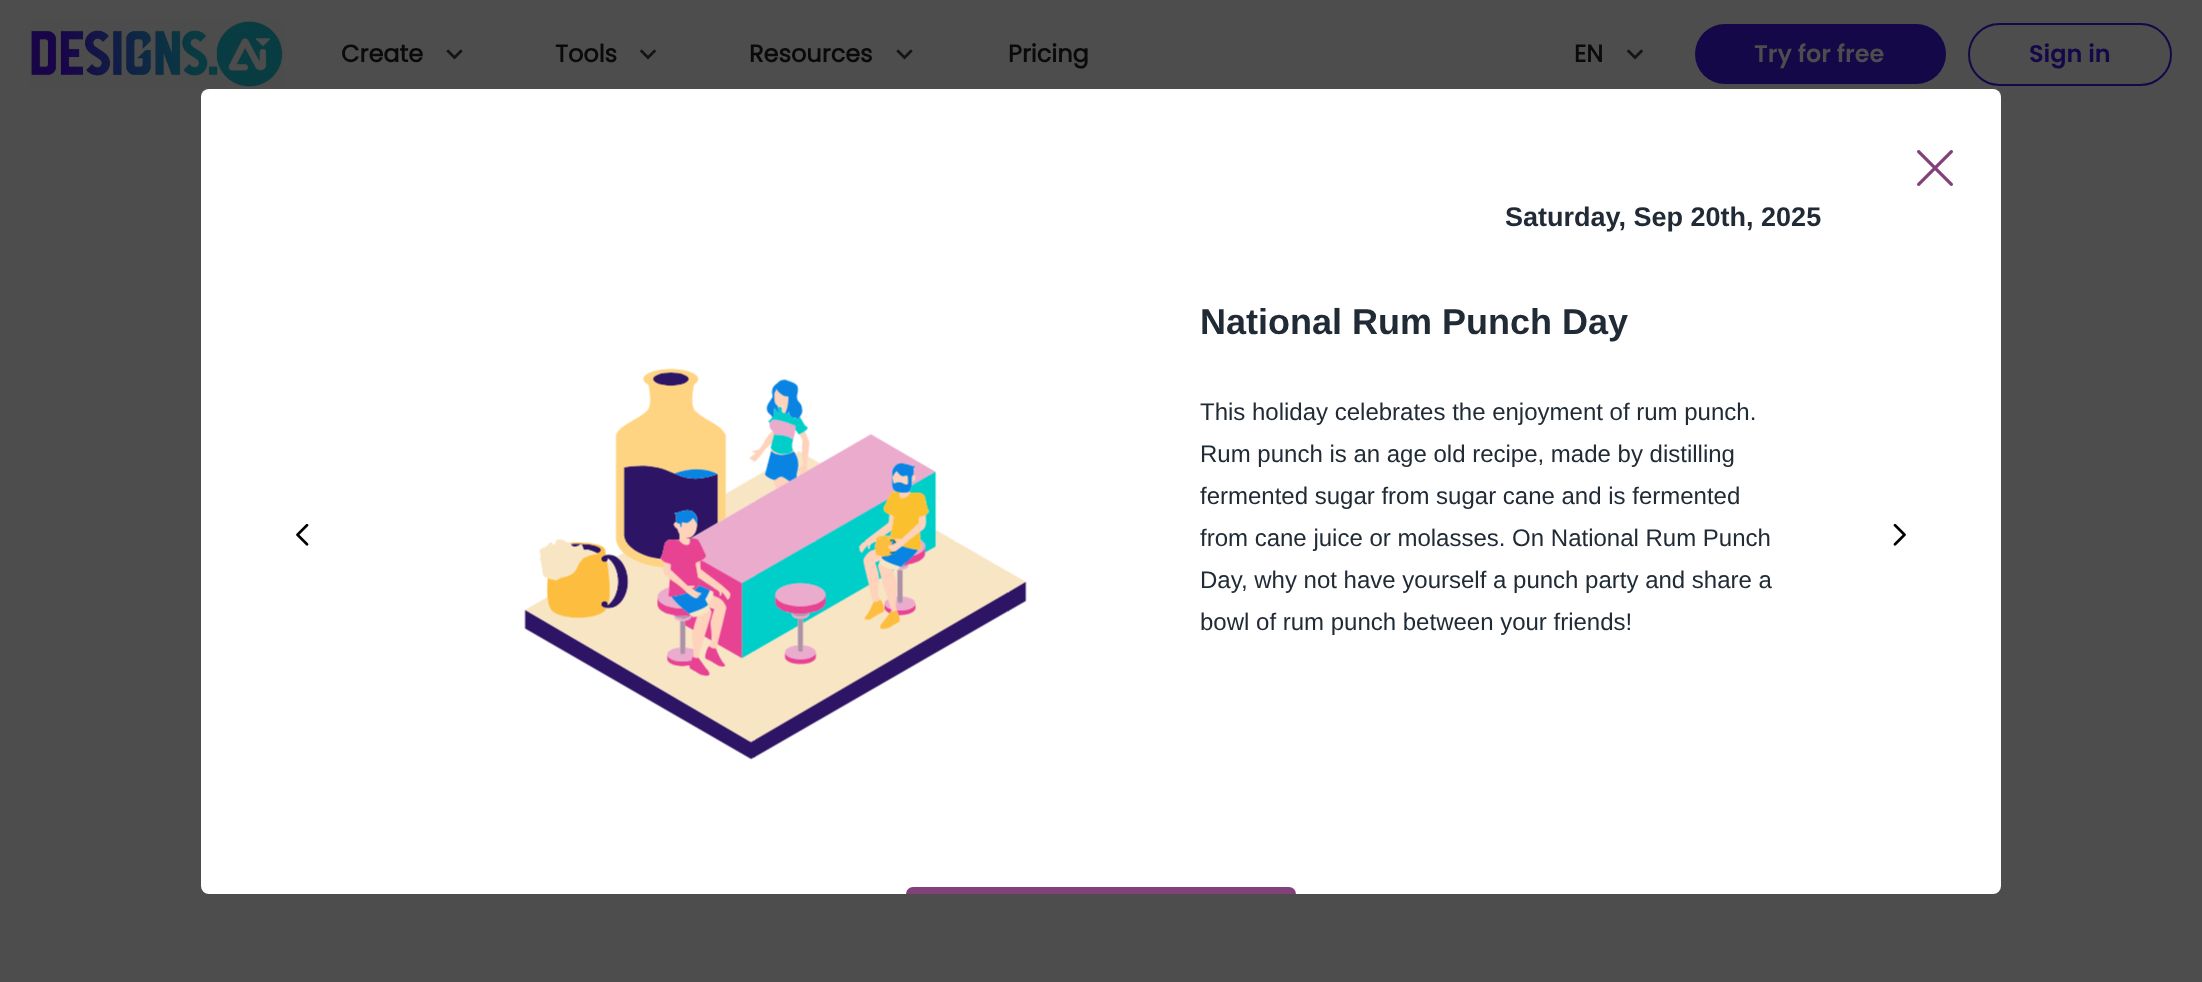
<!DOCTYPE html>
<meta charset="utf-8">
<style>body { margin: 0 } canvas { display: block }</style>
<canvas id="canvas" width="2202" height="982"></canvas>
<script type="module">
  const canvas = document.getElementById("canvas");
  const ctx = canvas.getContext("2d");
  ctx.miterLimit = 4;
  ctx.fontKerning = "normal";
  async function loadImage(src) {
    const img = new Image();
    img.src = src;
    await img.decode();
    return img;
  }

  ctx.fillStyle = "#4d4d4d";
  ctx.fillRect(0, 0, 2202, 982);
  ctx.drawImage(await loadImage("img1.png"), 30, 21, 254, 66);
  ctx.font = "bold 24px Poppins";
  ctx.fillStyle = "#0a0a0a";
  ctx.fillText("Create", 341, 62);
  ctx.drawImage(await loadImage("img2.png"), 446, 49, 17, 11);
  ctx.fillText("Tools", 555, 62);
  ctx.drawImage(await loadImage("img3.png"), 639, 49, 18, 11);
  ctx.fillText("Resources", 749, 62);
  ctx.drawImage(await loadImage("img2.png"), 896, 49, 17, 11);
  ctx.fillText("Pricing", 1008, 62);
  ctx.fillText("EN", 1574, 62);
  ctx.drawImage(await loadImage("img3.png"), 1626, 49, 18, 11);
  ctx.fillStyle = "#150848";
  ctx.beginPath();
  ctx.roundRect(1695, 24, 251, 60, 30);
  ctx.fill();
  ctx.font = "600 24px Poppins";
  ctx.fillStyle = "#4d4d4d";
  ctx.fillText("Try for free", 1754, 62);
  ctx.beginPath();
  ctx.roundRect(1969, 24, 202, 61, 30.5);
  ctx.strokeStyle = "#150848";
  ctx.lineWidth = 2;
  ctx.stroke();
  ctx.fillStyle = "#150848";
  ctx.fillText("Sign in", 2029, 62);
  ctx.fillStyle = "#ffffff";
  ctx.beginPath();
  ctx.roundRect(201, 89, 1800, 805, 8);
  ctx.fill();
  ctx.drawImage(await loadImage("img4.png"), 1917, 150, 36, 36);
  ctx.font = "bold 27px Liberation Sans";
  ctx.fillStyle = "#212b36";
  ctx.fillText("Saturday, Sep 20th, 2025", 1505, 226);
  ctx.drawImage(await loadImage("img5.png"), 296, 524, 13, 22);
  ctx.drawImage(await loadImage("img6.png"), 524, 368, 503, 392);
  ctx.font = "bold 36px Liberation Sans";
  ctx.fillText("National Rum Punch Day", 1200, 334);
  ctx.font = "24px Liberation Sans";
  ctx.fillText("This holiday celebrates the enjoyment of rum punch.", 1200, 420);
  ctx.fillText("Rum punch is an age old recipe, made by distilling", 1200, 462);
  ctx.fillText("fermented sugar from sugar cane and is fermented", 1200, 504);
  ctx.fillText("from cane juice or molasses. On National Rum Punch", 1200, 546);
  ctx.fillText("Day, why not have yourself a punch party and share a", 1200, 588);
  ctx.fillText("bowl of rum punch between your friends!", 1200, 630);
  ctx.drawImage(await loadImage("img7.png"), 1893, 524, 13, 22);
  ctx.fillStyle = "#824179";
  ctx.beginPath();
  ctx.roundRect(906, 887, 390, 7, [8, 8, 0, 0]);
  ctx.fill();
</script>
